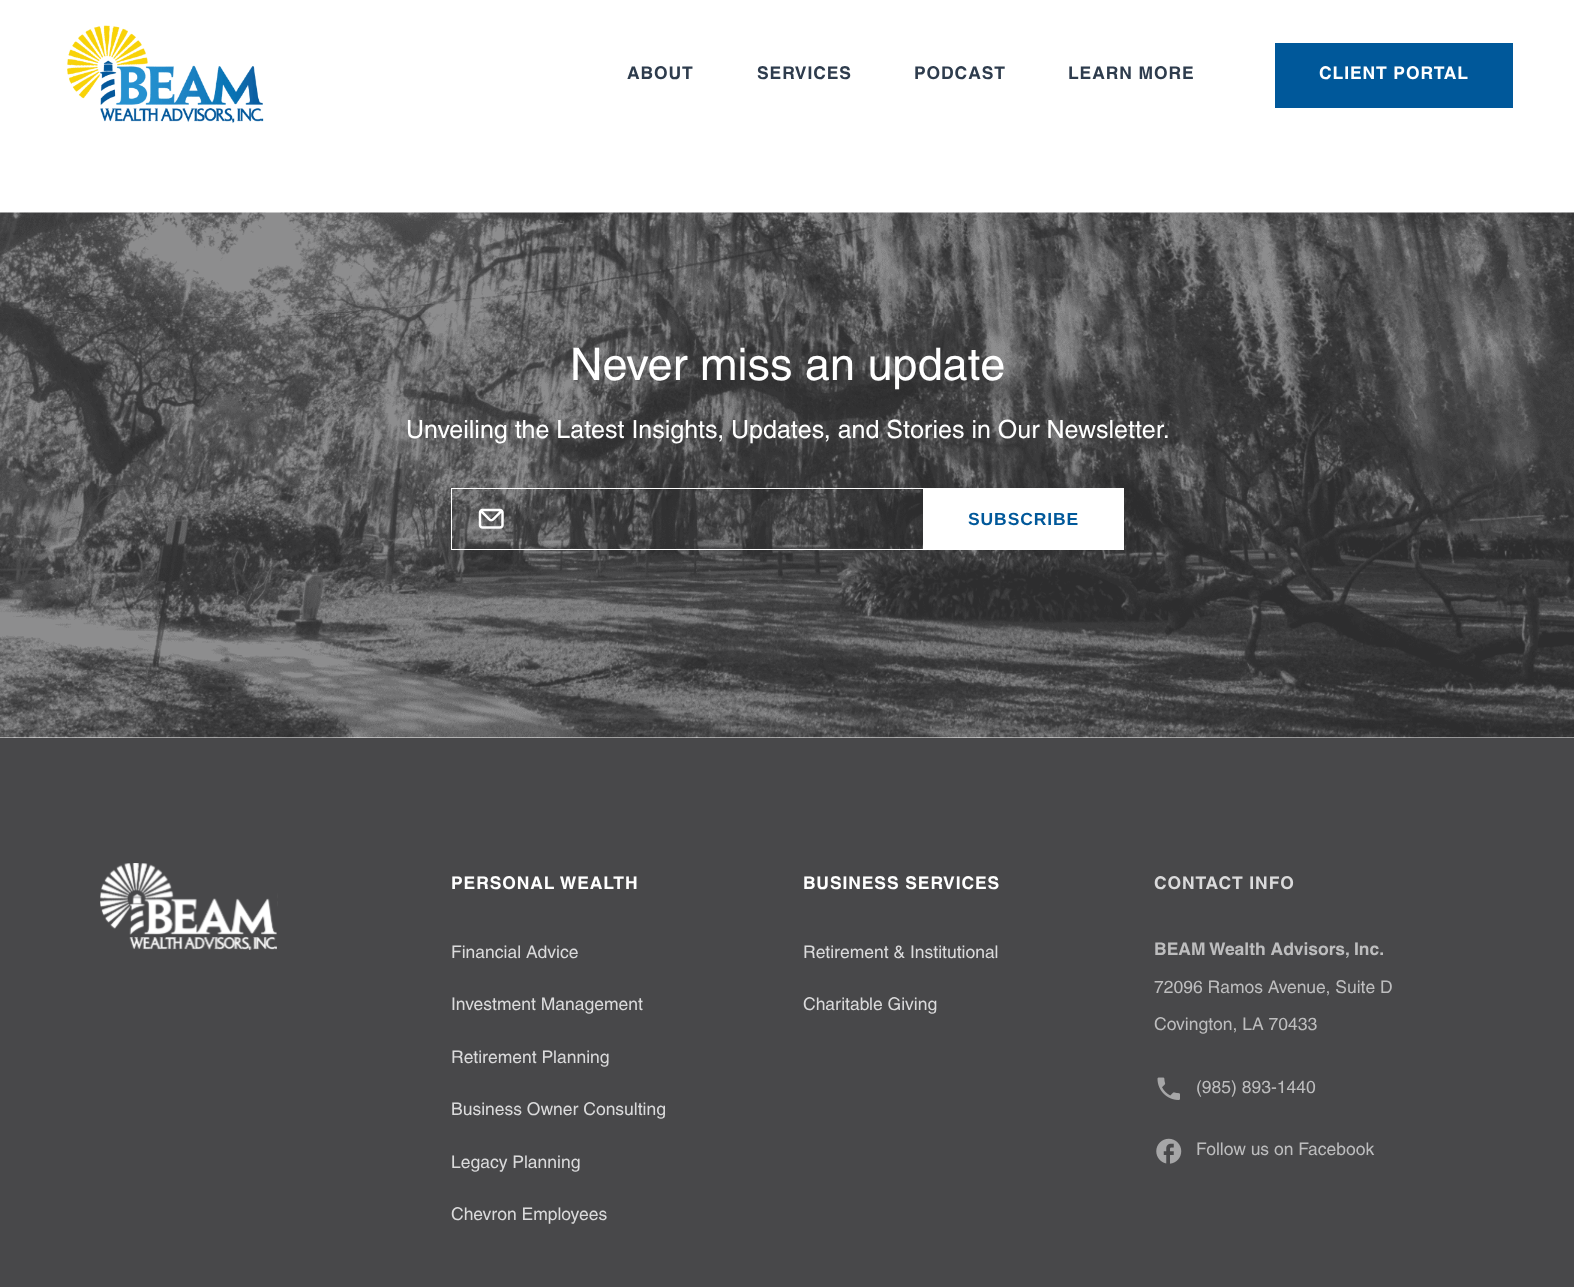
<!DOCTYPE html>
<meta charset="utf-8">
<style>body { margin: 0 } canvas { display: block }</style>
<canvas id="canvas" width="1574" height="1287"></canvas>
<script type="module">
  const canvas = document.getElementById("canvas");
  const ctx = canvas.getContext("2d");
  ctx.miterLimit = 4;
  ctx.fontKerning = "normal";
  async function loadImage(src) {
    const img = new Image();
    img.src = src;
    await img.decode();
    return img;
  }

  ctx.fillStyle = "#ffffff";
  ctx.fillRect(0, 0, 1574, 1287);
  ctx.drawImage(await loadImage("img1.png"), 67, 25, 197, 98);
  ctx.letterSpacing = "0.9px";
  ctx.font = "bold 17.5px Helvetica";
  ctx.fillStyle = "#2e3c4d";
  ctx.fillText("ABOUT", 627, 79);
  ctx.fillText("SERVICES", 757, 79);
  ctx.fillText("PODCAST", 914, 79);
  ctx.fillText("LEARN MORE", 1068, 79);
  ctx.fillStyle = "#00589a";
  ctx.fillRect(1275, 43, 238, 65);
  ctx.fillStyle = "#ffffff";
  ctx.fillText("CLIENT PORTAL", 1319, 79);
  ctx.drawImage(await loadImage("img2.png"), 0, 212, 1574, 526);
  ctx.letterSpacing = "0px";
  ctx.font = "45px Helvetica";
  ctx.fillText("Never miss an update", 570, 380);
  ctx.font = "25px Helvetica";
  ctx.fillText("Unveiling the Latest Insights, Updates, and Stories in Our Newsletter.", 406, 438);
  ctx.strokeStyle = "#ffffff";
  ctx.strokeRect(451.5, 488.5, 472, 61);
  ctx.drawImage(await loadImage("img3.png"), 478, 508, 26, 21);
  ctx.fillRect(924, 488, 200, 62);
  ctx.letterSpacing = "0.9px";
  ctx.font = "bold 17.5px Liberation Sans";
  ctx.fillStyle = "#00589a";
  ctx.fillText("SUBSCRIBE", 968, 525);
  ctx.fillStyle = "#48484a";
  ctx.fillRect(0, 738, 1574, 549);
  ctx.drawImage(await loadImage("img4.png"), 100, 863, 178, 87);
  ctx.font = "bold 17.5px Helvetica";
  ctx.fillStyle = "#ffffff";
  ctx.fillText("PERSONAL WEALTH", 451, 889);
  ctx.letterSpacing = "0px";
  ctx.font = "17.5px Helvetica";
  ctx.fillStyle = "#dadadb";
  ctx.fillText("Financial Advice", 451, 958);
  ctx.fillText("Investment Management", 451, 1010);
  ctx.fillText("Retirement Planning", 451, 1063);
  ctx.fillText("Business Owner Consulting", 451, 1115);
  ctx.fillText("Legacy Planning", 451, 1168);
  ctx.fillText("Chevron Employees", 451, 1220);
  ctx.letterSpacing = "0.9px";
  ctx.font = "bold 17.5px Helvetica";
  ctx.fillStyle = "#ffffff";
  ctx.fillText("BUSINESS SERVICES", 803, 889);
  ctx.letterSpacing = "0px";
  ctx.font = "17.5px Helvetica";
  ctx.fillStyle = "#dadadb";
  ctx.fillText("Retirement & Institutional", 803, 958);
  ctx.fillText("Charitable Giving", 803, 1010);
  ctx.letterSpacing = "0.9px";
  ctx.font = "bold 17.5px Helvetica";
  ctx.fillText("CONTACT INFO", 1154, 889);
  ctx.letterSpacing = "0px";
  ctx.fillStyle = "#bdbdbe";
  ctx.fillText("BEAM Wealth Advisors, Inc.", 1154, 955);
  ctx.font = "17.5px Helvetica";
  ctx.fillText("72096 Ramos Avenue, Suite D", 1154, 993);
  ctx.fillText("Covington, LA 70433", 1154, 1030);
  ctx.drawImage(await loadImage("img5.png"), 1157, 1077, 23, 23);
  ctx.fillText("(985) 893-1440", 1196, 1093);
  ctx.drawImage(await loadImage("img6.png"), 1156, 1138, 26, 26);
  ctx.fillText("Follow us on Facebook", 1196, 1155);
</script>
